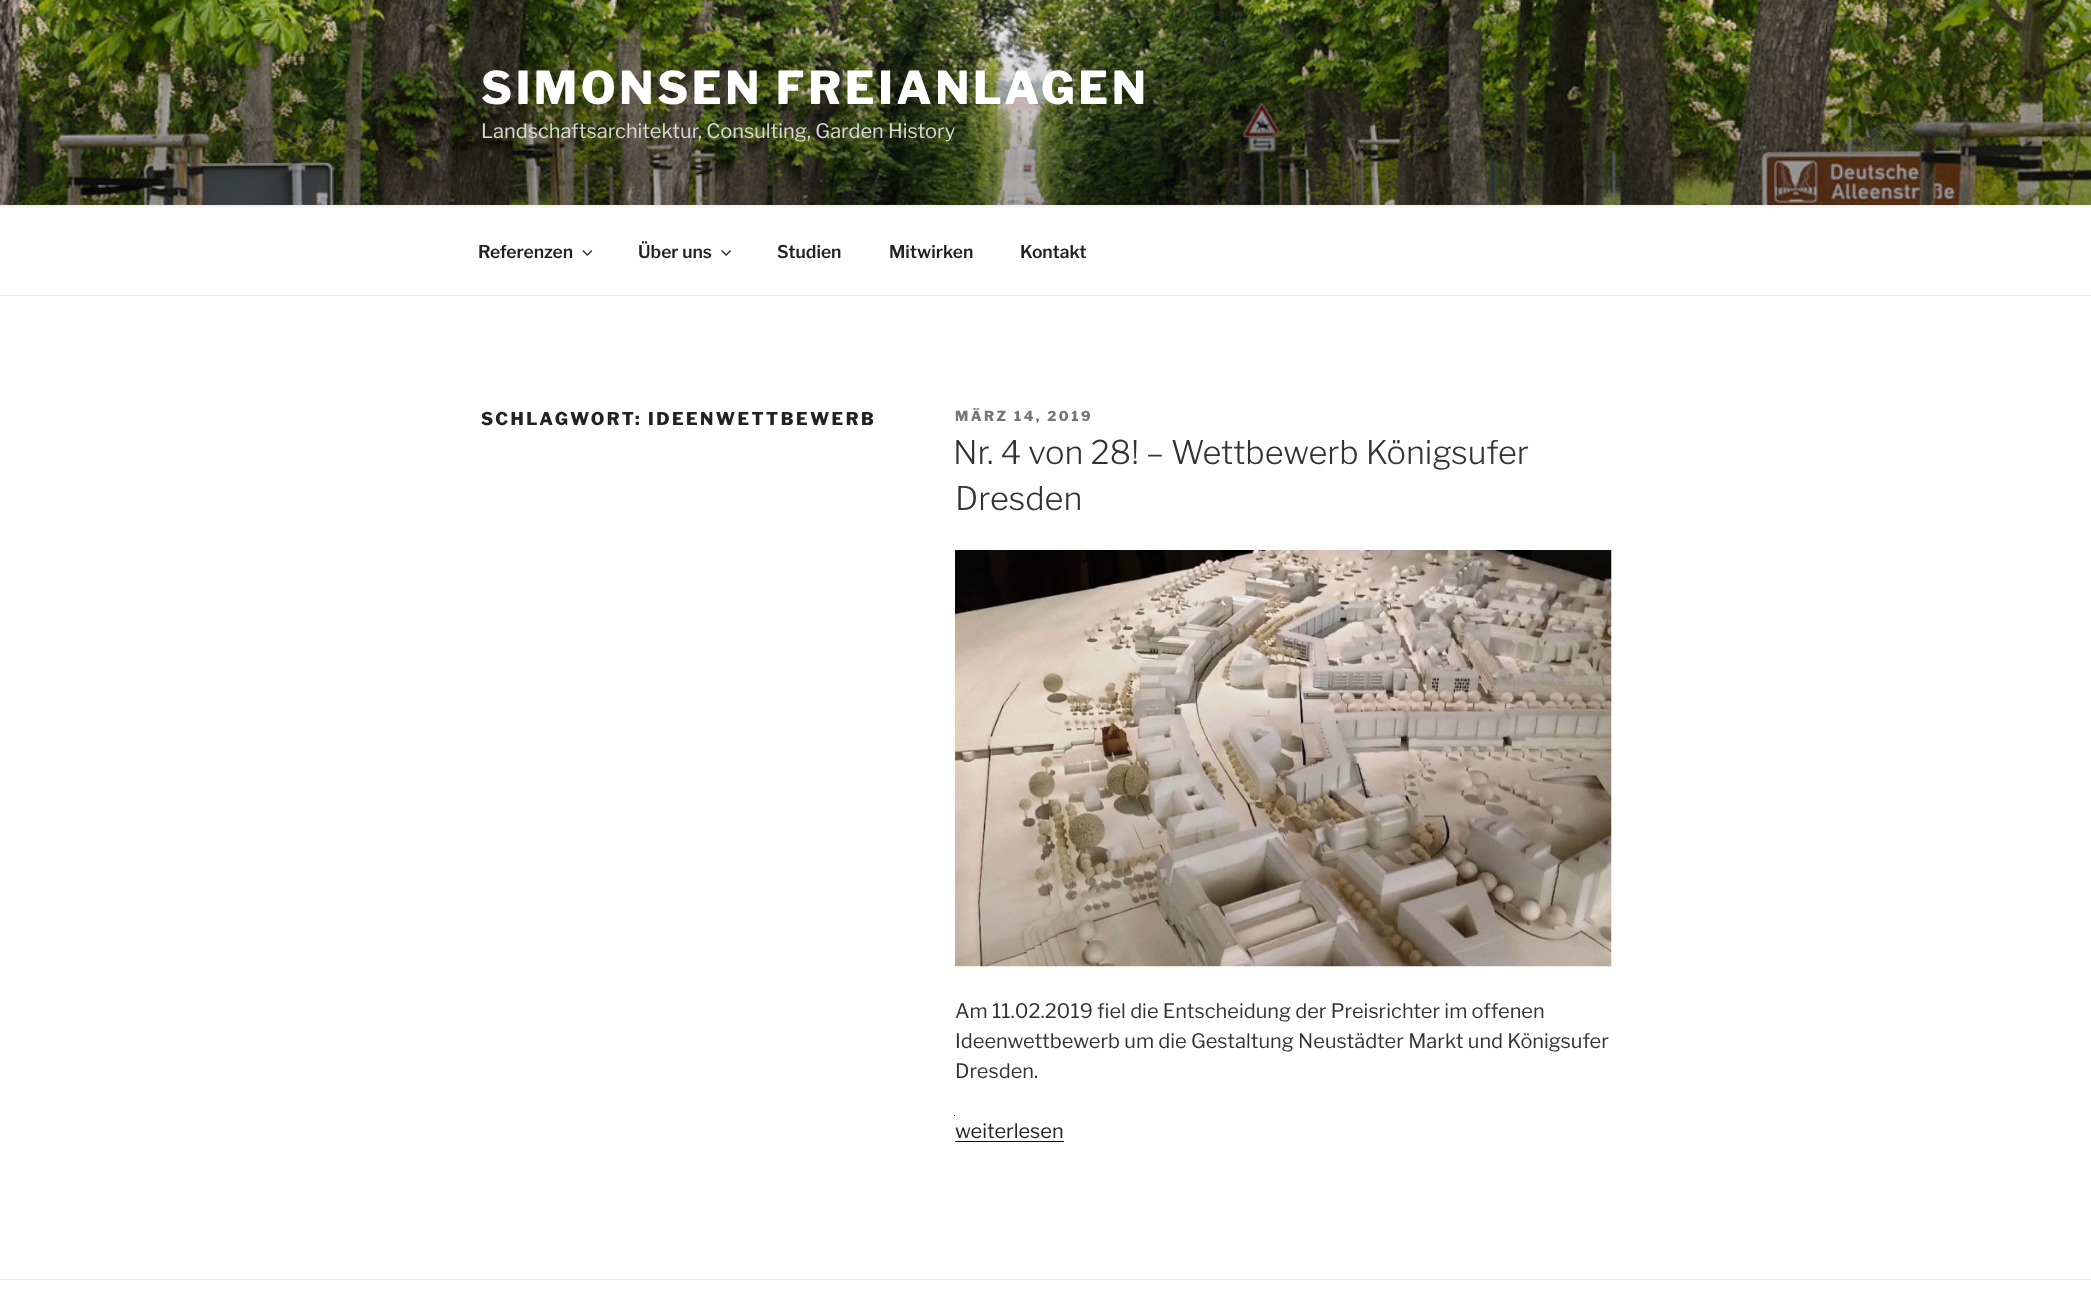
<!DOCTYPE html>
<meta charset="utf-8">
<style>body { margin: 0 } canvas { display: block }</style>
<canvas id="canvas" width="2091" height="1298"></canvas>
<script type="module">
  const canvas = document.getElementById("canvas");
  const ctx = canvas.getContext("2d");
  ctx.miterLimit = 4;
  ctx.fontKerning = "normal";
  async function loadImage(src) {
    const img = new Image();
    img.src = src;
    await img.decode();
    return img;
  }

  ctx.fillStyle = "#ffffff";
  ctx.fillRect(0, 0, 2091, 1298);
  ctx.fillStyle = "#fafafa";
  ctx.fillRect(0, 205, 2091, 1);
  ctx.drawImage(await loadImage("img1.png"), 0, 0, 2091, 205);
  ctx.letterSpacing = "3.6px";
  ctx.font = "100 45px Libre Franklin";
  ctx.fillStyle = "#ffffff";
  ctx.fillText("SIMONSEN FREIANLAGEN", 481, 104);
  ctx.letterSpacing = "0px";
  ctx.font = "100 20px 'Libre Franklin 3'";
  ctx.fillStyle = "#d8d9d3";
  ctx.fillText("Landschaftsarchitektur, Consulting, Garden History", 481, 138);
  ctx.fillStyle = "#eeeeee";
  ctx.fillRect(0, 206, 2091, 1);
  ctx.fillRect(0, 295, 2091, 1);
  ctx.font = "100 17.5px 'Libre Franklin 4'";
  ctx.fillStyle = "#222222";
  ctx.fillText("Referenzen", 478, 258);
  ctx.drawImage(await loadImage("img2.png"), 582, 250, 11, 6);
  ctx.fillText("Über uns", 638, 258);
  ctx.drawImage(await loadImage("img3.png"), 721, 250, 10, 6);
  ctx.fillText("Studien", 777, 258);
  ctx.fillText("Mitwirken", 889, 258);
  ctx.fillText("Kontakt", 1020, 258);
  ctx.letterSpacing = "2.45px";
  ctx.font = "100 17.5px Libre Franklin";
  ctx.fillText("SCHLAGWORT: IDEENWETTBEWERB", 481, 425);
  ctx.letterSpacing = "2.5px";
  ctx.font = "100 13.75px Libre Franklin";
  ctx.fillStyle = "#767676";
  ctx.fillText("MÄRZ 14, 2019", 955, 421);
  ctx.letterSpacing = "0px";
  ctx.font = "100 32.5px 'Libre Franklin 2'";
  ctx.fillStyle = "#333333";
  ctx.fillText("Nr. 4 von 28! – Wettbewerb Königsufer", 953, 464);
  ctx.fillText("Dresden", 955, 510);
  ctx.drawImage(await loadImage("img4.png"), 955, 550, 657, 417);
  ctx.font = "100 20px 'Libre Franklin 3'";
  ctx.fillText("Am 11.02.2019 fiel die Entscheidung der Preisrichter im offenen", 955, 1018);
  ctx.fillText("Ideenwettbewerb um die Gestaltung Neustädter Markt und Königsufer", 955, 1048);
  ctx.fillText("Dresden.", 955, 1078);
  ctx.fillStyle = "#222222";
  ctx.fillText("weiterlesen", 955, 1138);
  ctx.fillStyle = "#0f0f0f";
  ctx.fillRect(954, 1115, 1, 1);
  ctx.fillRect(955, 1141, 109, 1);
  ctx.fillStyle = "#eeeeee";
  ctx.fillRect(0, 1279, 2091, 1);
</script>
